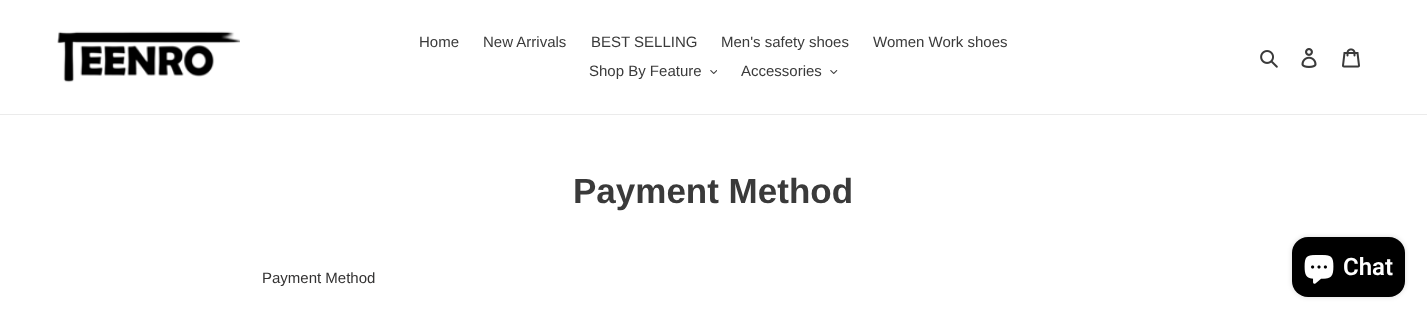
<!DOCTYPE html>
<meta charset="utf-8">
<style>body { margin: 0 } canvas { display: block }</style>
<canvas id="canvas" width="1427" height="318"></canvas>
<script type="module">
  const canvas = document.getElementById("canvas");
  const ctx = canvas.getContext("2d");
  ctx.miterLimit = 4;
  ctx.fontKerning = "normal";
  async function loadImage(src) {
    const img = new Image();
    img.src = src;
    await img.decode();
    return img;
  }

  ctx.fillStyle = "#ffffff";
  ctx.fillRect(0, 0, 1427, 318);
  ctx.fillStyle = "#ebebeb";
  ctx.fillRect(0, 114, 1427, 1);
  ctx.drawImage(await loadImage("img1.png"), 57, 31, 183, 52);
  ctx.font = "15px Liberation Sans";
  ctx.fillStyle = "#3a3a3a";
  ctx.fillText("Home", 419, 47);
  ctx.fillText("New Arrivals", 483, 47);
  ctx.fillText("BEST SELLING", 591, 47);
  ctx.fillText("Men's safety shoes", 721, 47);
  ctx.fillText("Women Work shoes", 873, 47);
  ctx.fillText("Shop By Feature", 589, 76);
  ctx.drawImage(await loadImage("img2.png"), 710, 70, 7, 4);
  ctx.fillText("Accessories", 741, 76);
  ctx.drawImage(await loadImage("img3.png"), 830, 70, 8, 4);
  ctx.drawImage(await loadImage("img4.png"), 1260, 50, 18, 18);
  ctx.drawImage(await loadImage("img5.png"), 1301, 48, 16, 20);
  ctx.drawImage(await loadImage("img6.png"), 1342, 48, 18, 20);
  ctx.font = "bold 35px Liberation Sans";
  ctx.fillText("Payment Method", 573, 203);
  ctx.font = "15px Liberation Sans";
  ctx.fillStyle = "#333232";
  ctx.fillText("Payment Method", 262, 283);
  ctx.fillStyle = "rgba(0, 0, 0, 0.15)";
  ctx.filter = "blur(2.5px)";
  ctx.beginPath();
  ctx.roundRect(1292, 237, 113, 60, 16);
  ctx.fill();
  ctx.filter = "none";
  ctx.fillStyle = "#000000";
  ctx.beginPath();
  ctx.roundRect(1292, 237, 113, 60, 16);
  ctx.fill();
  ctx.drawImage(await loadImage("img7.png"), 1304, 255, 30, 29);
  ctx.font = "600 24px Roboto";
  ctx.fillStyle = "#ffffff";
  ctx.fillText("Chat", 1343, 275);
</script>
